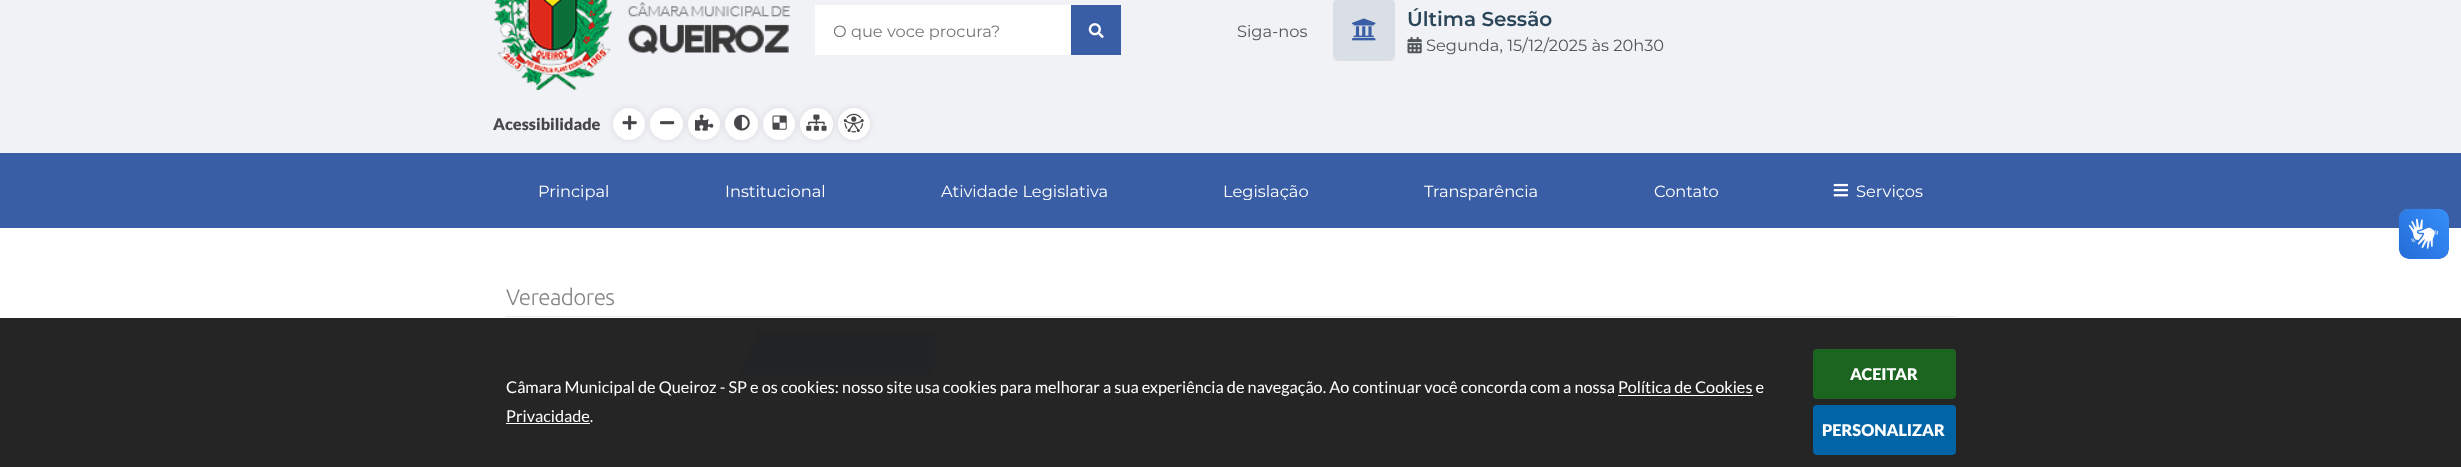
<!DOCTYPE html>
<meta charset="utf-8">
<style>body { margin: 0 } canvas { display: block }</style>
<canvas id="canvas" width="2461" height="467"></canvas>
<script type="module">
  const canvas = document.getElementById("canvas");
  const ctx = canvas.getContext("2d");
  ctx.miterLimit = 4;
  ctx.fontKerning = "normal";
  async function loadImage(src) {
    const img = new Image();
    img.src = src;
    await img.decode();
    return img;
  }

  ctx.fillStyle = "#ffffff";
  ctx.fillRect(0, 0, 2461, 467);
  ctx.fillStyle = "#252525";
  ctx.fillRect(0, 318, 2461, 149);
  ctx.fillStyle = "#f0f2f5";
  ctx.fillRect(0, 0, 2461, 153);
  ctx.drawImage(await loadImage("img1.png"), 493, 0, 297, 90);
  ctx.fillStyle = "#ffffff";
  ctx.fillRect(815, 5, 256, 50);
  ctx.save();
  ctx.beginPath();
  ctx.rect(834, 20, 209, 20);
  ctx.clip();
  ctx.font = "16.25px Montserrat";
  ctx.fillStyle = "#757575";
  ctx.fillText("O que voce procura?", 833, 37);
  ctx.restore();
  ctx.fillStyle = "#3a5ea6";
  ctx.fillRect(1071, 5, 50, 50);
  ctx.drawImage(await loadImage("img2.png"), 1088, 23, 16, 16);
  ctx.font = "16.25px Montserrat";
  ctx.fillStyle = "#505659";
  ctx.fillText("Siga-nos", 1237, 37);
  ctx.fillStyle = "#dadfe6";
  ctx.beginPath();
  ctx.roundRect(1333, -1, 62, 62, 5);
  ctx.fill();
  ctx.drawImage(await loadImage("img3.png"), 1352, 18, 24, 23);
  ctx.font = "600 20px Montserrat";
  ctx.fillStyle = "#2a4558";
  ctx.fillText("Última Sessão", 1407, 26);
  ctx.drawImage(await loadImage("img4.png"), 1407, 37, 15, 17);
  ctx.font = "16.25px Montserrat";
  ctx.fillStyle = "#505659";
  ctx.fillText("Segunda, 15/12/2025 às 20h30", 1426, 51);
  ctx.font = "900 16.25px Lato";
  ctx.fillStyle = "#47474b";
  ctx.fillText("Acessibilidade", 493, 130);
  ctx.fillStyle = "rgba(0, 0, 0, 0.1)";
  ctx.filter = "blur(3px)";
  ctx.beginPath();
  ctx.roundRect(613, 108, 32, 32, 16);
  ctx.fill();
  ctx.filter = "none";
  ctx.fillStyle = "#ffffff";
  ctx.beginPath();
  ctx.arc(629, 124, 16, 0, Math.PI * 2);
  ctx.fill();
  ctx.drawImage(await loadImage("img5.png"), 622, 115, 15, 15);
  ctx.fillStyle = "rgba(0, 0, 0, 0.1)";
  ctx.filter = "blur(3px)";
  ctx.beginPath();
  ctx.roundRect(650, 108, 33, 32, 16);
  ctx.fill();
  ctx.filter = "none";
  ctx.fillStyle = "#ffffff";
  ctx.beginPath();
  ctx.roundRect(650, 108, 33, 32, 16);
  ctx.fill();
  ctx.drawImage(await loadImage("img6.png"), 660, 121, 15, 4);
  ctx.fillStyle = "rgba(0, 0, 0, 0.1)";
  ctx.filter = "blur(3px)";
  ctx.beginPath();
  ctx.roundRect(688, 108, 32, 32, 16);
  ctx.fill();
  ctx.filter = "none";
  ctx.fillStyle = "#ffffff";
  ctx.beginPath();
  ctx.arc(704, 124, 16, 0, Math.PI * 2);
  ctx.fill();
  ctx.drawImage(await loadImage("img7.png"), 695, 114, 19, 17);
  ctx.fillStyle = "rgba(0, 0, 0, 0.1)";
  ctx.filter = "blur(3px)";
  ctx.beginPath();
  ctx.roundRect(725, 108, 33, 32, 16);
  ctx.fill();
  ctx.filter = "none";
  ctx.fillStyle = "#ffffff";
  ctx.beginPath();
  ctx.roundRect(725, 108, 33, 32, 16);
  ctx.fill();
  ctx.drawImage(await loadImage("img8.png"), 734, 114, 16, 17);
  ctx.fillStyle = "rgba(0, 0, 0, 0.1)";
  ctx.filter = "blur(3px)";
  ctx.beginPath();
  ctx.roundRect(763, 108, 32, 32, 16);
  ctx.fill();
  ctx.filter = "none";
  ctx.fillStyle = "#ffffff";
  ctx.beginPath();
  ctx.arc(779, 124, 16, 0, Math.PI * 2);
  ctx.fill();
  ctx.drawImage(await loadImage("img9.png"), 772, 115, 15, 15);
  ctx.fillStyle = "rgba(0, 0, 0, 0.1)";
  ctx.filter = "blur(3px)";
  ctx.beginPath();
  ctx.roundRect(800, 108, 33, 32, 16);
  ctx.fill();
  ctx.filter = "none";
  ctx.fillStyle = "#ffffff";
  ctx.beginPath();
  ctx.roundRect(800, 108, 33, 32, 16);
  ctx.fill();
  ctx.drawImage(await loadImage("img10.png"), 806, 114, 21, 17);
  ctx.fillStyle = "rgba(0, 0, 0, 0.1)";
  ctx.filter = "blur(3px)";
  ctx.beginPath();
  ctx.roundRect(838, 108, 32, 32, 16);
  ctx.fill();
  ctx.filter = "none";
  ctx.fillStyle = "#ffffff";
  ctx.beginPath();
  ctx.arc(854, 124, 16, 0, Math.PI * 2);
  ctx.fill();
  ctx.drawImage(await loadImage("img11.png"), 843, 113, 21, 20);
  ctx.fillStyle = "#3a5ea6";
  ctx.fillRect(0, 153, 2461, 75);
  ctx.font = "16.25px Montserrat";
  ctx.fillStyle = "#ffffff";
  ctx.fillText("Principal", 538, 197);
  ctx.fillText("Institucional", 725, 197);
  ctx.save();
  ctx.beginPath();
  ctx.rect(941, 180, 167, 20);
  ctx.clip();
  ctx.fillText("Atividade Legislativa", 941, 197);
  ctx.restore();
  ctx.save();
  ctx.beginPath();
  ctx.rect(1224, 180, 85, 20);
  ctx.clip();
  ctx.fillText("Legislação", 1223, 197);
  ctx.restore();
  ctx.fillText("Transparência", 1424, 197);
  ctx.fillText("Contato", 1654, 197);
  ctx.drawImage(await loadImage("img12.png"), 1833, 183, 15, 14);
  ctx.save();
  ctx.beginPath();
  ctx.rect(1856, 180, 67, 20);
  ctx.clip();
  ctx.fillText("Serviços", 1856, 197);
  ctx.restore();
  ctx.drawImage(await loadImage("img13.png"), 2398, 208, 51, 51);
  ctx.drawImage(await loadImage("img14.png"), 2399, 209, 50, 50);
  ctx.font = "16.25px Lato";
  ctx.fillText("Câmara Municipal de Queiroz - SP e os cookies: nosso site usa cookies para melhorar a sua experiência de navegação. Ao continuar você concorda com a nossa Política de Cookies e", 506, 393);
  ctx.fillText("Privacidade.", 506, 422);
  ctx.fillRect(1618, 395, 135, 1);
  ctx.fillRect(506, 423, 84, 1);
  ctx.fillStyle = "#1b6520";
  ctx.beginPath();
  ctx.roundRect(1813, 349, 143, 50, 4);
  ctx.fill();
  ctx.font = "900 16.25px Lato";
  ctx.fillStyle = "#ffffff";
  ctx.fillText("ACEITAR", 1850, 380);
  ctx.fillStyle = "#0164a4";
  ctx.beginPath();
  ctx.roundRect(1813, 405, 143, 50, 4);
  ctx.fill();
  ctx.fillStyle = "#ffffff";
  ctx.fillText("PERSONALIZAR", 1822, 436);
  ctx.letterSpacing = "-0.6px";
  ctx.font = "300 22.5px Ubuntu";
  ctx.fillStyle = "#868686";
  ctx.fillText("Vereadores", 506, 305);
  ctx.fillStyle = "#e9e9e9";
  ctx.fillRect(506, 316, 1450, 1);
  ctx.fillStyle = "#222324";
  ctx.beginPath();
  ctx.roundRect(758, 331, 177, 44, [0, 6, 6, 0]);
  ctx.fill();
  ctx.beginPath();
  ctx.moveTo(758, 375);
  ctx.lineTo(740, 375);
  ctx.lineTo(758, 331);
  ctx.closePath();
  ctx.fill();
</script>
